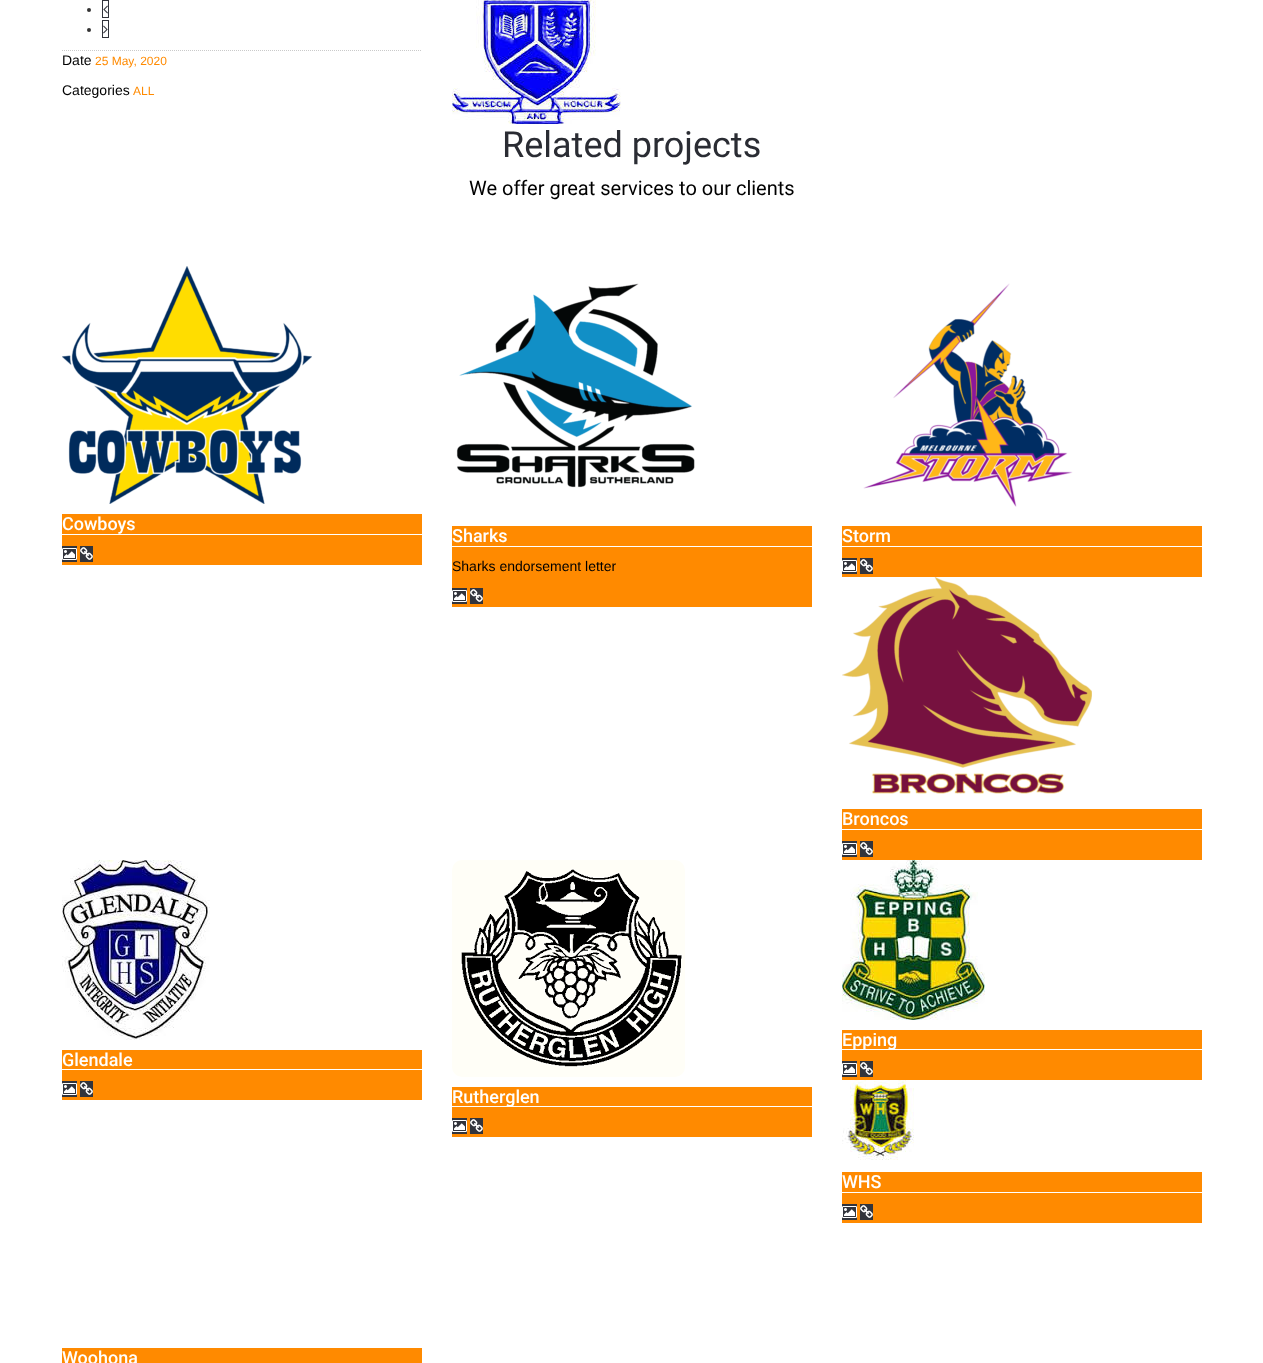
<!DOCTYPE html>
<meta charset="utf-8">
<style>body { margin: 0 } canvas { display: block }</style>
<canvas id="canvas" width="1263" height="1363"></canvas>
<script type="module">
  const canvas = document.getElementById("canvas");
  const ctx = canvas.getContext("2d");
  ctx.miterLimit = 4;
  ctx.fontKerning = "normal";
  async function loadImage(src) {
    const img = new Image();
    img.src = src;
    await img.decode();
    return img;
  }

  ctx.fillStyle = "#ffffff";
  ctx.fillRect(0, 0, 1263, 1363);
  ctx.fillStyle = "#333333";
  ctx.beginPath();
  ctx.arc(89, 10, 2, 0, Math.PI * 2);
  ctx.fill();
  ctx.strokeStyle = "#32343c";
  ctx.strokeRect(102.5, 0.5, 6, 17);
  ctx.drawImage(await loadImage("img1.png"), 103, 5, 5, 9);
  ctx.beginPath();
  ctx.arc(89, 30, 2, 0, Math.PI * 2);
  ctx.fill();
  ctx.strokeRect(102.5, 20.5, 6, 17);
  ctx.drawImage(await loadImage("img2.png"), 103, 25, 5, 9);
  ctx.beginPath();
  ctx.moveTo(62, 50.5);
  ctx.lineTo(422, 50.5);
  ctx.strokeStyle = "#cacaca";
  ctx.setLineDash([1, 1]);
  ctx.stroke();
  ctx.font = "14px Liberation Sans";
  ctx.fillStyle = "#000000";
  ctx.fillText("Date", 62, 65);
  ctx.font = "12px Liberation Sans";
  ctx.fillStyle = "#ff8a00";
  ctx.fillText("25 May, 2020", 95, 65);
  ctx.font = "14px Liberation Sans";
  ctx.fillStyle = "#000000";
  ctx.fillText("Categories", 62, 95);
  ctx.font = "12px Liberation Sans";
  ctx.fillStyle = "#ff8a00";
  ctx.fillText("ALL", 133, 95);
  ctx.drawImage(await loadImage("img3.png"), 452, 0, 169, 124);
  ctx.font = "36px Roboto";
  ctx.fillStyle = "#2a2c33";
  ctx.fillText("Related projects", 502, 157);
  ctx.font = "20px Roboto";
  ctx.fillStyle = "#000000";
  ctx.fillText("We offer great services to our clients", 469, 195);
  ctx.drawImage(await loadImage("img4.png"), 62, 266, 250, 238);
  ctx.fillStyle = "#ff8a00";
  ctx.fillRect(62, 514, 360, 51);
  ctx.fillStyle = "#ffffff";
  ctx.fillRect(62, 534, 360, 1);
  ctx.font = "500 18px Roboto";
  ctx.fillText("Cowboys", 62, 530);
  ctx.fillStyle = "#32343c";
  ctx.fillRect(62, 546, 15, 16);
  ctx.drawImage(await loadImage("img5.png"), 62, 548, 15, 12);
  ctx.fillRect(80, 546, 13, 16);
  ctx.drawImage(await loadImage("img6.png"), 80, 547, 13, 13);
  ctx.drawImage(await loadImage("img7.png"), 456, 283, 239, 205);
  ctx.fillStyle = "#ff8a00";
  ctx.fillRect(452, 526, 360, 81);
  ctx.fillStyle = "#ffffff";
  ctx.fillRect(452, 546, 360, 1);
  ctx.fillText("Sharks", 452, 542);
  ctx.font = "14px Liberation Sans";
  ctx.fillStyle = "#000000";
  ctx.fillText("Sharks endorsement letter", 452, 571);
  ctx.fillStyle = "#32343c";
  ctx.fillRect(452, 588, 15, 16);
  ctx.drawImage(await loadImage("img5.png"), 452, 590, 15, 12);
  ctx.fillRect(470, 588, 13, 16);
  ctx.drawImage(await loadImage("img6.png"), 470, 589, 13, 13);
  ctx.drawImage(await loadImage("img8.png"), 863, 283, 210, 224);
  ctx.fillStyle = "#ff8a00";
  ctx.fillRect(842, 526, 360, 51);
  ctx.fillStyle = "#ffffff";
  ctx.fillRect(842, 546, 360, 1);
  ctx.font = "500 18px Roboto";
  ctx.fillText("Storm", 842, 542);
  ctx.fillStyle = "#32343c";
  ctx.fillRect(842, 558, 15, 16);
  ctx.drawImage(await loadImage("img5.png"), 842, 560, 15, 12);
  ctx.fillRect(860, 558, 13, 16);
  ctx.drawImage(await loadImage("img6.png"), 860, 559, 13, 13);
  ctx.drawImage(await loadImage("img9.png"), 842, 577, 250, 217);
  ctx.fillStyle = "#ff8a00";
  ctx.fillRect(842, 809, 360, 51);
  ctx.fillStyle = "#ffffff";
  ctx.fillRect(842, 829, 360, 1);
  ctx.fillText("Broncos", 842, 825);
  ctx.fillStyle = "#32343c";
  ctx.fillRect(842, 841, 15, 16);
  ctx.drawImage(await loadImage("img5.png"), 842, 843, 15, 12);
  ctx.fillRect(860, 841, 13, 16);
  ctx.drawImage(await loadImage("img6.png"), 860, 842, 13, 13);
  ctx.drawImage(await loadImage("img10.png"), 842, 860, 143, 160);
  ctx.fillStyle = "#ff8a00";
  ctx.fillRect(842, 1030, 360, 50);
  ctx.fillStyle = "#ffffff";
  ctx.fillRect(842, 1049, 360, 1);
  ctx.fillText("Epping", 842, 1046);
  ctx.fillStyle = "#32343c";
  ctx.fillRect(842, 1061, 15, 16);
  ctx.drawImage(await loadImage("img5.png"), 842, 1063, 15, 12);
  ctx.fillRect(860, 1061, 13, 16);
  ctx.drawImage(await loadImage("img6.png"), 860, 1062, 13, 13);
  ctx.drawImage(await loadImage("img11.png"), 62, 860, 148, 180);
  ctx.fillStyle = "#ff8a00";
  ctx.fillRect(62, 1050, 360, 50);
  ctx.fillStyle = "#ffffff";
  ctx.fillRect(62, 1069, 360, 1);
  ctx.fillText("Glendale", 62, 1066);
  ctx.fillStyle = "#32343c";
  ctx.fillRect(62, 1081, 15, 16);
  ctx.drawImage(await loadImage("img5.png"), 62, 1083, 15, 12);
  ctx.fillRect(80, 1081, 13, 16);
  ctx.drawImage(await loadImage("img6.png"), 80, 1082, 13, 13);
  ctx.drawImage(await loadImage("img12.png"), 452, 860, 233, 217);
  ctx.fillStyle = "#ff8a00";
  ctx.fillRect(452, 1087, 360, 50);
  ctx.fillStyle = "#ffffff";
  ctx.fillRect(452, 1106, 360, 1);
  ctx.fillText("Rutherglen", 452, 1103);
  ctx.fillStyle = "#32343c";
  ctx.fillRect(452, 1118, 15, 16);
  ctx.drawImage(await loadImage("img5.png"), 452, 1120, 15, 12);
  ctx.fillRect(470, 1118, 13, 16);
  ctx.drawImage(await loadImage("img6.png"), 470, 1119, 13, 13);
  ctx.drawImage(await loadImage("img13.png"), 842, 1080, 72, 80);
  ctx.fillStyle = "#ff8a00";
  ctx.fillRect(842, 1172, 360, 51);
  ctx.fillStyle = "#ffffff";
  ctx.fillRect(842, 1192, 360, 1);
  ctx.fillText("WHS", 842, 1188);
  ctx.fillStyle = "#32343c";
  ctx.fillRect(842, 1204, 15, 16);
  ctx.drawImage(await loadImage("img5.png"), 842, 1206, 15, 12);
  ctx.fillRect(860, 1204, 13, 16);
  ctx.drawImage(await loadImage("img6.png"), 860, 1205, 13, 13);
  ctx.fillStyle = "#ff8a00";
  ctx.fillRect(62, 1348, 360, 15);
  ctx.fillStyle = "#ffffff";
  ctx.fillText("Woohona", 62, 1364);
</script>
